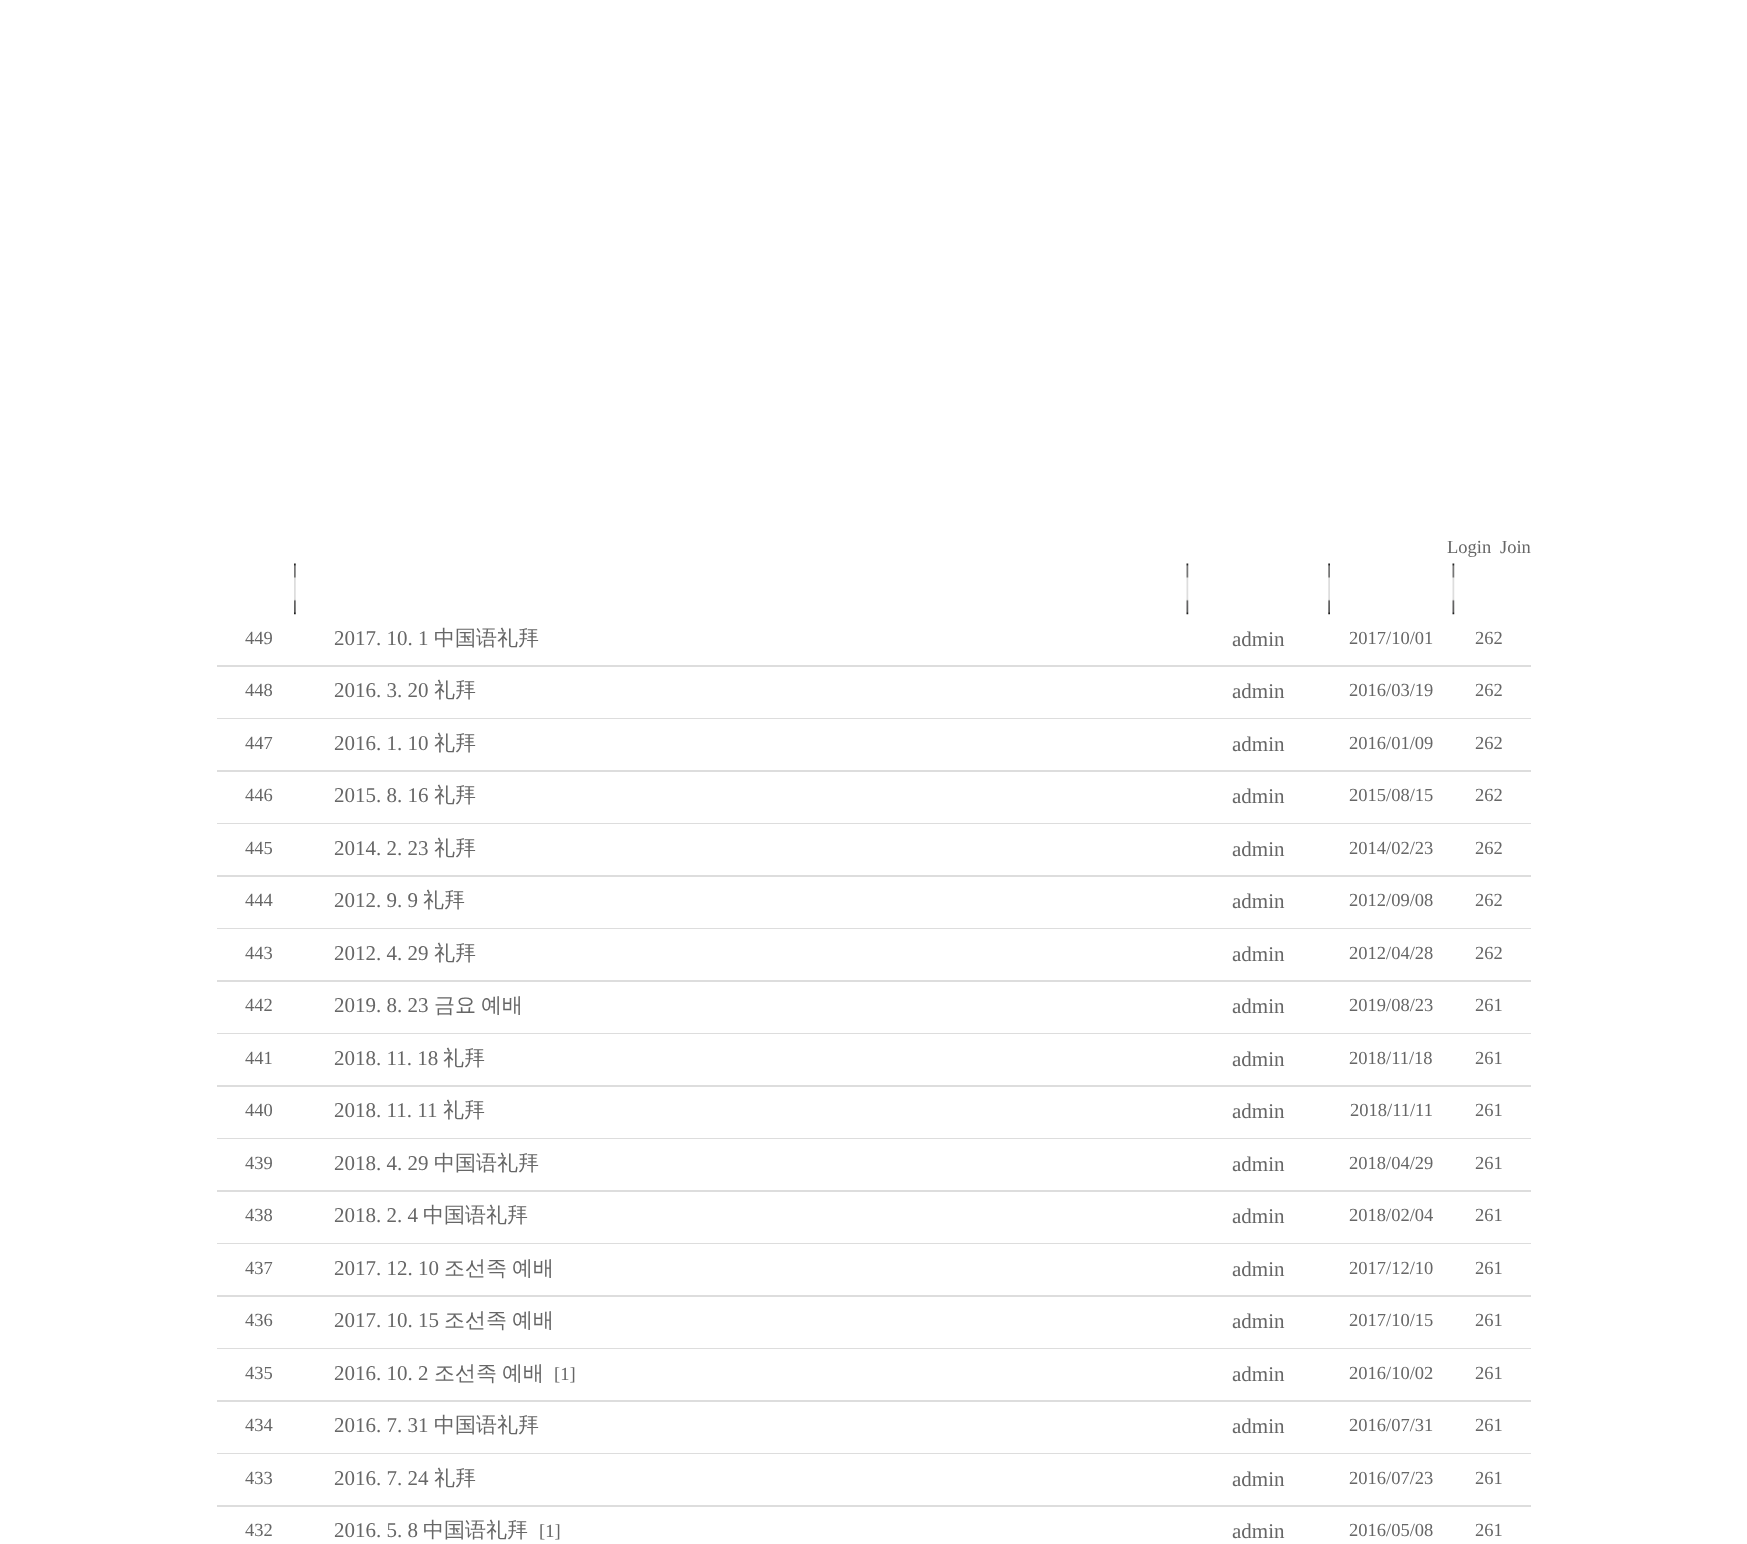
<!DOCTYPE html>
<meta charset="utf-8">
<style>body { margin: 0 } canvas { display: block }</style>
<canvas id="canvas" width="1747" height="1544"></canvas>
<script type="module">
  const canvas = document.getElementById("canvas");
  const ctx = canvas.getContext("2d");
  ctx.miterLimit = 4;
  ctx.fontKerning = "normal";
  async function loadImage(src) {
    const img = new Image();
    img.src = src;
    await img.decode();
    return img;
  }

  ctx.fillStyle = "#ffffff";
  ctx.fillRect(0, 0, 1747, 1544);
  ctx.font = "18.5px Liberation Serif";
  ctx.fillStyle = "#666666";
  ctx.fillText("Login", 1447, 553);
  ctx.fillText("Join", 1500, 553);
  ctx.drawImage(await loadImage("img1.png"), 294, 563, 2, 52);
  ctx.drawImage(await loadImage("img2.png"), 1186, 563, 3, 52);
  ctx.drawImage(await loadImage("img3.png"), 1328, 563, 2, 52);
  ctx.drawImage(await loadImage("img2.png"), 1452, 563, 3, 52);
  ctx.fillText("449", 245, 644);
  ctx.font = "21px Liberation Serif";
  ctx.fillText("2017. 10. 1", 334, 645);
  ctx.font = "500 21px WenQuanYi Zen Hei";
  ctx.fillText("中国语礼拜", 434, 645);
  ctx.font = "21px Liberation Serif";
  ctx.fillText("admin", 1232, 646);
  ctx.font = "18.5px Liberation Serif";
  ctx.fillText("2017/10/01", 1349, 644);
  ctx.fillText("262", 1475, 644);
  ctx.fillStyle = "#dddddd";
  ctx.fillRect(217, 665, 1314, 2);
  ctx.fillStyle = "#666666";
  ctx.fillText("448", 245, 696);
  ctx.font = "21px Liberation Serif";
  ctx.fillText("2016. 3. 20", 334, 697);
  ctx.font = "500 21px WenQuanYi Zen Hei";
  ctx.fillText("礼拜", 434, 697);
  ctx.font = "21px Liberation Serif";
  ctx.fillText("admin", 1232, 698);
  ctx.font = "18.5px Liberation Serif";
  ctx.fillText("2016/03/19", 1349, 696);
  ctx.fillText("262", 1475, 696);
  ctx.fillStyle = "#dddddd";
  ctx.fillRect(217, 718, 1314, 1);
  ctx.fillStyle = "#666666";
  ctx.fillText("447", 245, 749);
  ctx.font = "21px Liberation Serif";
  ctx.fillText("2016. 1. 10", 334, 750);
  ctx.font = "500 21px WenQuanYi Zen Hei";
  ctx.fillText("礼拜", 434, 750);
  ctx.font = "21px Liberation Serif";
  ctx.fillText("admin", 1232, 751);
  ctx.font = "18.5px Liberation Serif";
  ctx.fillText("2016/01/09", 1349, 749);
  ctx.fillText("262", 1475, 749);
  ctx.fillStyle = "#dddddd";
  ctx.fillRect(217, 770, 1314, 2);
  ctx.fillStyle = "#666666";
  ctx.fillText("446", 245, 801);
  ctx.font = "21px Liberation Serif";
  ctx.fillText("2015. 8. 16", 334, 802);
  ctx.font = "500 21px WenQuanYi Zen Hei";
  ctx.fillText("礼拜", 434, 802);
  ctx.font = "21px Liberation Serif";
  ctx.fillText("admin", 1232, 803);
  ctx.font = "18.5px Liberation Serif";
  ctx.fillText("2015/08/15", 1349, 801);
  ctx.fillText("262", 1475, 801);
  ctx.fillStyle = "#dddddd";
  ctx.fillRect(217, 823, 1314, 1);
  ctx.fillStyle = "#666666";
  ctx.fillText("445", 245, 854);
  ctx.font = "21px Liberation Serif";
  ctx.fillText("2014. 2. 23", 334, 855);
  ctx.font = "500 21px WenQuanYi Zen Hei";
  ctx.fillText("礼拜", 434, 855);
  ctx.font = "21px Liberation Serif";
  ctx.fillText("admin", 1232, 856);
  ctx.font = "18.5px Liberation Serif";
  ctx.fillText("2014/02/23", 1349, 854);
  ctx.fillText("262", 1475, 854);
  ctx.fillStyle = "#dddddd";
  ctx.fillRect(217, 875, 1314, 2);
  ctx.fillStyle = "#666666";
  ctx.fillText("444", 245, 906);
  ctx.font = "21px Liberation Serif";
  ctx.fillText("2012. 9. 9", 334, 907);
  ctx.font = "500 21px WenQuanYi Zen Hei";
  ctx.fillText("礼拜", 423, 907);
  ctx.font = "21px Liberation Serif";
  ctx.fillText("admin", 1232, 908);
  ctx.font = "18.5px Liberation Serif";
  ctx.fillText("2012/09/08", 1349, 906);
  ctx.fillText("262", 1475, 906);
  ctx.fillStyle = "#dddddd";
  ctx.fillRect(217, 928, 1314, 1);
  ctx.fillStyle = "#666666";
  ctx.fillText("443", 245, 959);
  ctx.font = "21px Liberation Serif";
  ctx.fillText("2012. 4. 29", 334, 960);
  ctx.font = "500 21px WenQuanYi Zen Hei";
  ctx.fillText("礼拜", 434, 960);
  ctx.font = "21px Liberation Serif";
  ctx.fillText("admin", 1232, 961);
  ctx.font = "18.5px Liberation Serif";
  ctx.fillText("2012/04/28", 1349, 959);
  ctx.fillText("262", 1475, 959);
  ctx.fillStyle = "#dddddd";
  ctx.fillRect(217, 980, 1314, 2);
  ctx.fillStyle = "#666666";
  ctx.fillText("442", 245, 1011);
  ctx.font = "21px Liberation Serif";
  ctx.fillText("2019. 8. 23", 334, 1012);
  ctx.font = "500 21px WenQuanYi Zen Hei";
  ctx.fillText("금요", 434, 1012);
  ctx.fillText("예배", 481, 1012);
  ctx.font = "21px Liberation Serif";
  ctx.fillText("admin", 1232, 1013);
  ctx.font = "18.5px Liberation Serif";
  ctx.fillText("2019/08/23", 1349, 1011);
  ctx.fillText("261", 1475, 1011);
  ctx.fillStyle = "#dddddd";
  ctx.fillRect(217, 1033, 1314, 1);
  ctx.fillStyle = "#666666";
  ctx.fillText("441", 245, 1064);
  ctx.font = "21px Liberation Serif";
  ctx.fillText("2018. 11. 18", 334, 1065);
  ctx.font = "500 21px WenQuanYi Zen Hei";
  ctx.fillText("礼拜", 443, 1065);
  ctx.font = "21px Liberation Serif";
  ctx.fillText("admin", 1232, 1066);
  ctx.font = "18.5px Liberation Serif";
  ctx.fillText("2018/11/18", 1349, 1064);
  ctx.fillText("261", 1475, 1064);
  ctx.fillStyle = "#dddddd";
  ctx.fillRect(217, 1085, 1314, 2);
  ctx.fillStyle = "#666666";
  ctx.fillText("440", 245, 1116);
  ctx.font = "21px Liberation Serif";
  ctx.fillText("2018. 11. 11", 334, 1117);
  ctx.font = "500 21px WenQuanYi Zen Hei";
  ctx.fillText("礼拜", 443, 1117);
  ctx.font = "21px Liberation Serif";
  ctx.fillText("admin", 1232, 1118);
  ctx.font = "18.5px Liberation Serif";
  ctx.fillText("2018/11/11", 1350, 1116);
  ctx.fillText("261", 1475, 1116);
  ctx.fillStyle = "#dddddd";
  ctx.fillRect(217, 1138, 1314, 1);
  ctx.fillStyle = "#666666";
  ctx.fillText("439", 245, 1169);
  ctx.font = "21px Liberation Serif";
  ctx.fillText("2018. 4. 29", 334, 1170);
  ctx.font = "500 21px WenQuanYi Zen Hei";
  ctx.fillText("中国语礼拜", 434, 1170);
  ctx.font = "21px Liberation Serif";
  ctx.fillText("admin", 1232, 1171);
  ctx.font = "18.5px Liberation Serif";
  ctx.fillText("2018/04/29", 1349, 1169);
  ctx.fillText("261", 1475, 1169);
  ctx.fillStyle = "#dddddd";
  ctx.fillRect(217, 1190, 1314, 2);
  ctx.fillStyle = "#666666";
  ctx.fillText("438", 245, 1221);
  ctx.font = "21px Liberation Serif";
  ctx.fillText("2018. 2. 4", 334, 1222);
  ctx.font = "500 21px WenQuanYi Zen Hei";
  ctx.fillText("中国语礼拜", 423, 1222);
  ctx.font = "21px Liberation Serif";
  ctx.fillText("admin", 1232, 1223);
  ctx.font = "18.5px Liberation Serif";
  ctx.fillText("2018/02/04", 1349, 1221);
  ctx.fillText("261", 1475, 1221);
  ctx.fillStyle = "#dddddd";
  ctx.fillRect(217, 1243, 1314, 1);
  ctx.fillStyle = "#666666";
  ctx.fillText("437", 245, 1274);
  ctx.font = "21px Liberation Serif";
  ctx.fillText("2017. 12. 10", 334, 1275);
  ctx.font = "500 21px WenQuanYi Zen Hei";
  ctx.fillText("조선족", 444, 1275);
  ctx.fillText("예배", 512, 1275);
  ctx.font = "21px Liberation Serif";
  ctx.fillText("admin", 1232, 1276);
  ctx.font = "18.5px Liberation Serif";
  ctx.fillText("2017/12/10", 1349, 1274);
  ctx.fillText("261", 1475, 1274);
  ctx.fillStyle = "#dddddd";
  ctx.fillRect(217, 1295, 1314, 2);
  ctx.fillStyle = "#666666";
  ctx.fillText("436", 245, 1326);
  ctx.font = "21px Liberation Serif";
  ctx.fillText("2017. 10. 15", 334, 1327);
  ctx.font = "500 21px WenQuanYi Zen Hei";
  ctx.fillText("조선족", 444, 1327);
  ctx.fillText("예배", 512, 1327);
  ctx.font = "21px Liberation Serif";
  ctx.fillText("admin", 1232, 1328);
  ctx.font = "18.5px Liberation Serif";
  ctx.fillText("2017/10/15", 1349, 1326);
  ctx.fillText("261", 1475, 1326);
  ctx.fillStyle = "#dddddd";
  ctx.fillRect(217, 1348, 1314, 1);
  ctx.fillStyle = "#666666";
  ctx.fillText("435", 245, 1379);
  ctx.font = "21px Liberation Serif";
  ctx.fillText("2016. 10. 2", 334, 1380);
  ctx.font = "500 21px WenQuanYi Zen Hei";
  ctx.fillText("조선족", 434, 1380);
  ctx.fillText("예배", 502, 1380);
  ctx.font = "18.5px Liberation Serif";
  ctx.fillText("[1]", 554, 1380);
  ctx.font = "21px Liberation Serif";
  ctx.fillText("admin", 1232, 1381);
  ctx.font = "18.5px Liberation Serif";
  ctx.fillText("2016/10/02", 1349, 1379);
  ctx.fillText("261", 1475, 1379);
  ctx.fillStyle = "#dddddd";
  ctx.fillRect(217, 1400, 1314, 2);
  ctx.fillStyle = "#666666";
  ctx.fillText("434", 245, 1431);
  ctx.font = "21px Liberation Serif";
  ctx.fillText("2016. 7. 31", 334, 1432);
  ctx.font = "500 21px WenQuanYi Zen Hei";
  ctx.fillText("中国语礼拜", 434, 1432);
  ctx.font = "21px Liberation Serif";
  ctx.fillText("admin", 1232, 1433);
  ctx.font = "18.5px Liberation Serif";
  ctx.fillText("2016/07/31", 1349, 1431);
  ctx.fillText("261", 1475, 1431);
  ctx.fillStyle = "#dddddd";
  ctx.fillRect(217, 1453, 1314, 1);
  ctx.fillStyle = "#666666";
  ctx.fillText("433", 245, 1484);
  ctx.font = "21px Liberation Serif";
  ctx.fillText("2016. 7. 24", 334, 1485);
  ctx.font = "500 21px WenQuanYi Zen Hei";
  ctx.fillText("礼拜", 434, 1485);
  ctx.font = "21px Liberation Serif";
  ctx.fillText("admin", 1232, 1486);
  ctx.font = "18.5px Liberation Serif";
  ctx.fillText("2016/07/23", 1349, 1484);
  ctx.fillText("261", 1475, 1484);
  ctx.fillStyle = "#dddddd";
  ctx.fillRect(217, 1505, 1314, 2);
  ctx.fillStyle = "#666666";
  ctx.fillText("432", 245, 1536);
  ctx.font = "21px Liberation Serif";
  ctx.fillText("2016. 5. 8", 334, 1537);
  ctx.font = "500 21px WenQuanYi Zen Hei";
  ctx.fillText("中国语礼拜", 423, 1537);
  ctx.font = "18.5px Liberation Serif";
  ctx.fillText("[1]", 539, 1537);
  ctx.font = "21px Liberation Serif";
  ctx.fillText("admin", 1232, 1538);
  ctx.font = "18.5px Liberation Serif";
  ctx.fillText("2016/05/08", 1349, 1536);
  ctx.fillText("261", 1475, 1536);
</script>
